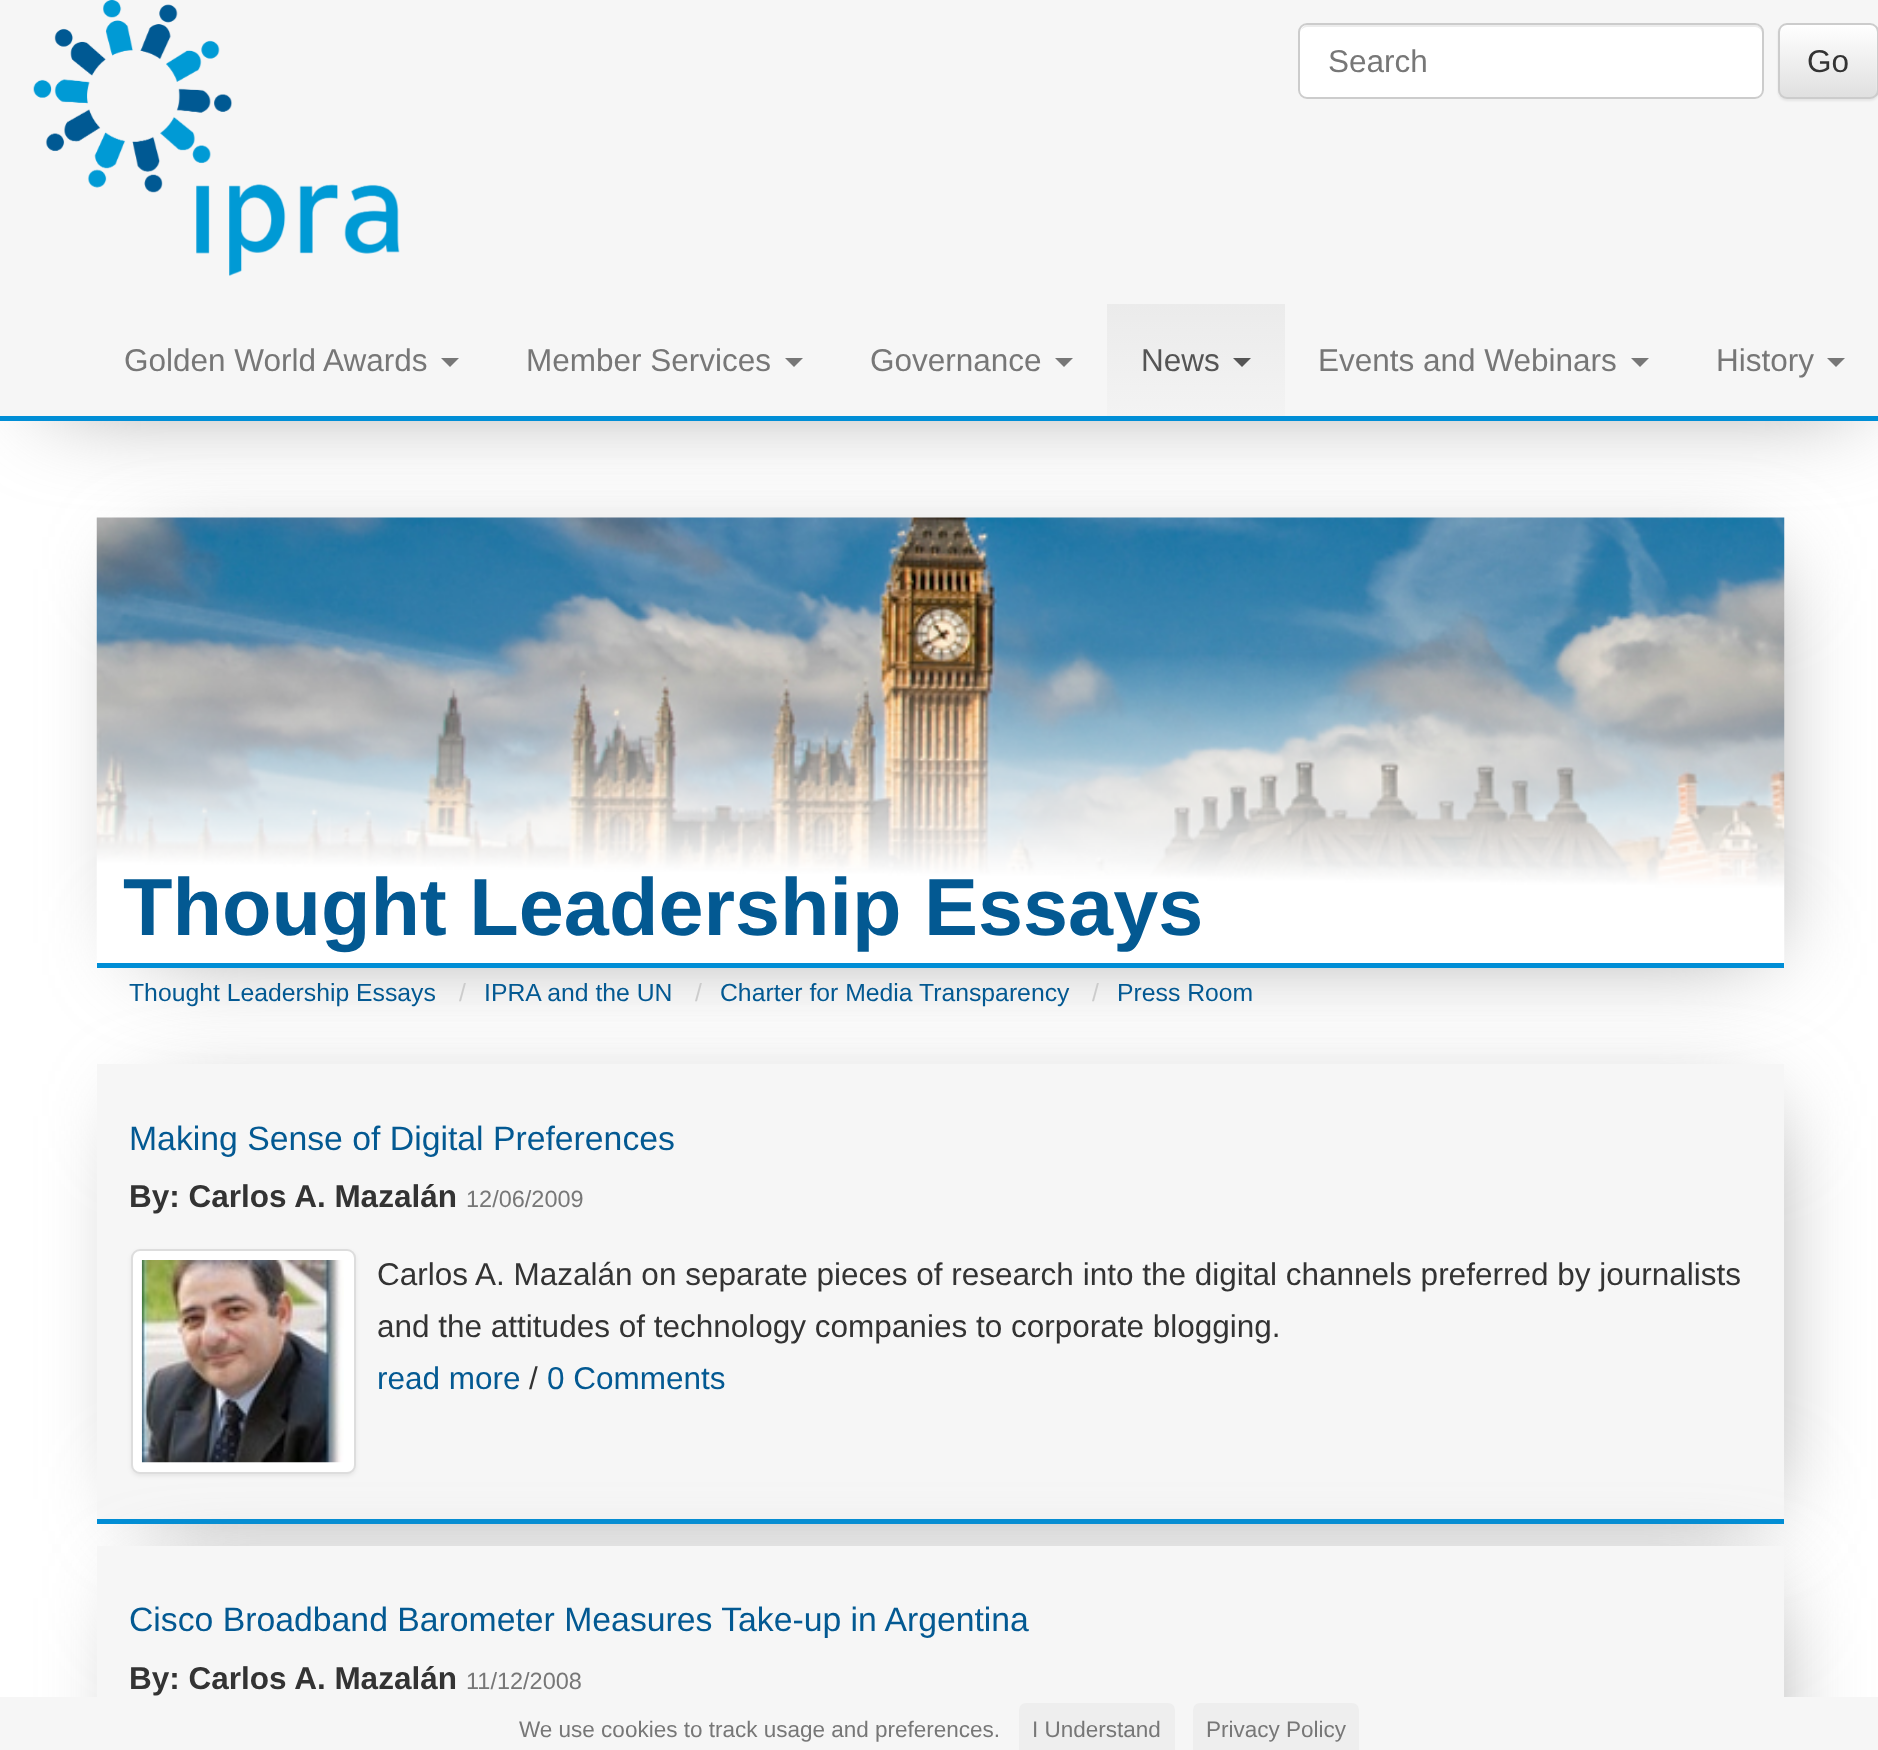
<!DOCTYPE html>
<meta charset="utf-8">
<style>body { margin: 0 } canvas { display: block }</style>
<canvas id="canvas" width="1878" height="1750"></canvas>
<script type="module">
  const canvas = document.getElementById("canvas");
  const ctx = canvas.getContext("2d");
  ctx.miterLimit = 4;
  ctx.fontKerning = "normal";
  async function loadImage(src) {
    const img = new Image();
    img.src = src;
    await img.decode();
    return img;
  }
  let gradient;

  ctx.fillStyle = "#ffffff";
  ctx.fillRect(0, 0, 1878, 1750);
  ctx.fillStyle = "#8f8f8f";
  ctx.filter = "blur(48.5px)";
  ctx.beginPath();
  ctx.rect(149, 1116, 1611, 383);
  ctx.fill();
  ctx.filter = "none";
  ctx.fillStyle = "#f6f6f6";
  ctx.fillRect(97, 1064, 1687, 455);
  ctx.fillStyle = "#8f8f8f";
  ctx.filter = "blur(48.5px)";
  ctx.beginPath();
  ctx.rect(149, 569, 1611, 374);
  ctx.fill();
  ctx.filter = "none";
  ctx.drawImage(await loadImage("img2.png"), 96, 517, 1689, 451);
  ctx.filter = "blur(48.5px)";
  ctx.beginPath();
  ctx.rect(52, 52, 1802, 344);
  ctx.fill();
  ctx.filter = "none";
  ctx.fillStyle = "#f6f6f6";
  ctx.fillRect(0, 0, 1878, 416);
  ctx.fillStyle = "#008ed6";
  ctx.fillRect(0, 416, 1878, 5);
  ctx.drawImage(await loadImage("img1.png"), 33, 0, 367, 276);
  ctx.fillStyle = "#ffffff";
  ctx.beginPath();
  ctx.roundRect(1298, 23, 466, 76, 9);
  ctx.fill();
  ctx.fillStyle = "#ececec";
  ctx.beginPath();
  ctx.moveTo(1307, 27);
  ctx.lineTo(1755, 27);
  ctx.bezierCurveTo(1759, 27, 1762, 30, 1762, 34);
  ctx.lineTo(1762, 32);
  ctx.bezierCurveTo(1762, 28, 1759, 25, 1755, 25);
  ctx.lineTo(1308, 25);
  ctx.bezierCurveTo(1305, 25, 1302, 27, 1301, 30);
  ctx.bezierCurveTo(1303, 28, 1305, 27, 1307, 27);
  ctx.closePath();
  ctx.fill();
  ctx.beginPath();
  ctx.roundRect(1299, 24, 464, 74, 8);
  ctx.strokeStyle = "#cccccc";
  ctx.lineWidth = 2;
  ctx.stroke();
  ctx.font = "31.5px Liberation Sans";
  ctx.fillStyle = "#777777";
  ctx.fillText("Search", 1328, 72);
  ctx.fillStyle = "rgba(0, 0, 0, 0.07)";
  ctx.filter = "blur(1px)";
  ctx.beginPath();
  ctx.roundRect(1778, 25, 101, 76, 9);
  ctx.fill();
  ctx.filter = "none";
  ctx.save();
  ctx.beginPath();
  ctx.roundRect(1778, 23, 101, 76, 9);
  ctx.clip();
  gradient = ctx.createLinearGradient(1828, 25, 1828, 97);
  gradient.addColorStop(0, "#ffffff");
  gradient.addColorStop(1, "#e0e0e0");
  ctx.fillStyle = gradient;
  ctx.fillRect(1778, 25, 100, 72);
  ctx.restore();
  ctx.fillStyle = "rgba(255, 255, 255, 0.15)";
  ctx.beginPath();
  ctx.moveTo(1786, 27);
  ctx.lineTo(1871, 27);
  ctx.bezierCurveTo(1878, 29, 1876, 39, 1876, 44);
  ctx.lineTo(1876, 94);
  ctx.bezierCurveTo(1877, 93, 1877, 91, 1877, 90);
  ctx.lineTo(1877, 32);
  ctx.bezierCurveTo(1877, 28, 1874, 25, 1870, 25);
  ctx.lineTo(1787, 25);
  ctx.bezierCurveTo(1783, 25, 1780, 28, 1780, 32);
  ctx.lineTo(1780, 34);
  ctx.bezierCurveTo(1780, 30, 1783, 27, 1786, 27);
  ctx.closePath();
  ctx.fill();
  ctx.beginPath();
  ctx.roundRect(1779, 24, 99, 74, 8);
  ctx.stroke();
  ctx.fillStyle = "#333333";
  ctx.fillText("Go", 1807, 72);
  ctx.fillStyle = "#777777";
  ctx.fillText("Golden World Awards", 124, 371);
  ctx.beginPath();
  ctx.moveTo(441, 358);
  ctx.lineTo(459, 358);
  ctx.lineTo(450, 367);
  ctx.closePath();
  ctx.fill();
  ctx.fillText("Member Services", 526, 371);
  ctx.beginPath();
  ctx.moveTo(785, 358);
  ctx.lineTo(803, 358);
  ctx.lineTo(794, 367);
  ctx.closePath();
  ctx.fill();
  ctx.fillText("Governance", 870, 371);
  ctx.beginPath();
  ctx.moveTo(1055, 358);
  ctx.lineTo(1073, 358);
  ctx.lineTo(1064, 367);
  ctx.closePath();
  ctx.fill();
  gradient = ctx.createLinearGradient(1196, 304, 1196, 416);
  gradient.addColorStop(0, "#ebebeb");
  gradient.addColorStop(1, "#f3f3f3");
  ctx.fillStyle = gradient;
  ctx.fillRect(1107, 304, 178, 112);
  ctx.fillStyle = "#555555";
  ctx.fillText("News", 1141, 371);
  ctx.beginPath();
  ctx.moveTo(1233, 358);
  ctx.lineTo(1251, 358);
  ctx.lineTo(1242, 367);
  ctx.closePath();
  ctx.fill();
  ctx.fillStyle = "#777777";
  ctx.fillText("Events and Webinars", 1318, 371);
  ctx.beginPath();
  ctx.moveTo(1631, 358);
  ctx.lineTo(1649, 358);
  ctx.lineTo(1640, 367);
  ctx.closePath();
  ctx.fill();
  ctx.fillText("History", 1716, 371);
  ctx.beginPath();
  ctx.moveTo(1827, 358);
  ctx.lineTo(1845, 358);
  ctx.lineTo(1836, 367);
  ctx.closePath();
  ctx.fill();
  ctx.fillStyle = "#008ed6";
  ctx.fillRect(97, 963, 1687, 5);
  ctx.font = "bold 81px Liberation Sans";
  ctx.fillStyle = "#035992";
  ctx.fillText("Thought Leadership Essays", 123, 935);
  ctx.font = "24.75px Liberation Sans";
  ctx.fillText("Thought Leadership Essays", 129, 1001);
  ctx.fillStyle = "#cccccc";
  ctx.fillText("/", 459, 1001);
  ctx.fillStyle = "#035992";
  ctx.fillText("IPRA and the UN", 484, 1001);
  ctx.fillStyle = "#cccccc";
  ctx.fillText("/", 695, 1001);
  ctx.fillStyle = "#035992";
  ctx.fillText("Charter for Media Transparency", 720, 1001);
  ctx.fillStyle = "#cccccc";
  ctx.fillText("/", 1092, 1001);
  ctx.fillStyle = "#035992";
  ctx.fillText("Press Room", 1117, 1001);
  ctx.fillStyle = "#008ed6";
  ctx.fillRect(97, 1519, 1687, 5);
  ctx.font = "33.75px Liberation Sans";
  ctx.fillStyle = "#035992";
  ctx.fillText("Making Sense of Digital Preferences", 129, 1150);
  ctx.font = "bold 31.5px Liberation Sans";
  ctx.fillStyle = "#333333";
  ctx.fillText("By: Carlos A. Mazalán", 129, 1207);
  ctx.font = "23.5px Liberation Sans";
  ctx.fillStyle = "#777777";
  ctx.fillText("12/06/2009", 466, 1207);
  ctx.fillStyle = "rgba(0, 0, 0, 0.07)";
  ctx.filter = "blur(2px)";
  ctx.beginPath();
  ctx.roundRect(131, 1251, 225, 225, 9);
  ctx.fill();
  ctx.filter = "none";
  ctx.fillStyle = "#8f8f8f";
  ctx.filter = "blur(48.5px)";
  ctx.beginPath();
  ctx.rect(149, 1598, 1611, 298);
  ctx.fill();
  ctx.filter = "none";
  ctx.fillStyle = "#ffffff";
  ctx.beginPath();
  ctx.roundRect(132, 1250, 223, 223, 8);
  ctx.fill();
  ctx.strokeStyle = "#dddddd";
  ctx.stroke();
  ctx.drawImage(await loadImage("img3.png"), 141, 1260, 203, 203);
  ctx.font = "31.5px Liberation Sans";
  ctx.fillStyle = "#333333";
  ctx.fillText("Carlos A. Mazalán on separate pieces of research into the digital channels preferred by journalists", 377, 1285);
  ctx.fillText("and the attitudes of technology companies to corporate blogging.", 377, 1337);
  ctx.fillStyle = "#035992";
  ctx.fillText("read more", 377, 1389);
  ctx.fillStyle = "#333333";
  ctx.fillText("/", 529, 1389);
  ctx.fillStyle = "#035992";
  ctx.fillText("0 Comments", 547, 1389);
  ctx.fillStyle = "#f6f6f6";
  ctx.fillRect(97, 1546, 1687, 151);
  ctx.font = "33.75px Liberation Sans";
  ctx.fillStyle = "#035992";
  ctx.fillText("Cisco Broadband Barometer Measures Take-up in Argentina", 129, 1631);
  ctx.font = "bold 31.5px Liberation Sans";
  ctx.fillStyle = "#333333";
  ctx.fillText("By: Carlos A. Mazalán", 129, 1689);
  ctx.font = "23.5px Liberation Sans";
  ctx.fillStyle = "#777777";
  ctx.fillText("11/12/2008", 466, 1689);
  ctx.fillStyle = "#f6f6f6";
  ctx.fillRect(0, 1697, 1878, 53);
  ctx.font = "22.5px Liberation Sans";
  ctx.fillStyle = "#777777";
  ctx.fillText("We use cookies to track usage and preferences.", 519, 1737);
  ctx.fillStyle = "#eeeeee";
  ctx.beginPath();
  ctx.roundRect(1019, 1703, 156, 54, 7);
  ctx.fill();
  ctx.fillStyle = "#777777";
  ctx.fillText("I Understand", 1032, 1737);
  ctx.fillStyle = "#eeeeee";
  ctx.beginPath();
  ctx.roundRect(1193, 1703, 166, 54, 7);
  ctx.fill();
  ctx.fillStyle = "#777777";
  ctx.fillText("Privacy Policy", 1206, 1737);
</script>
